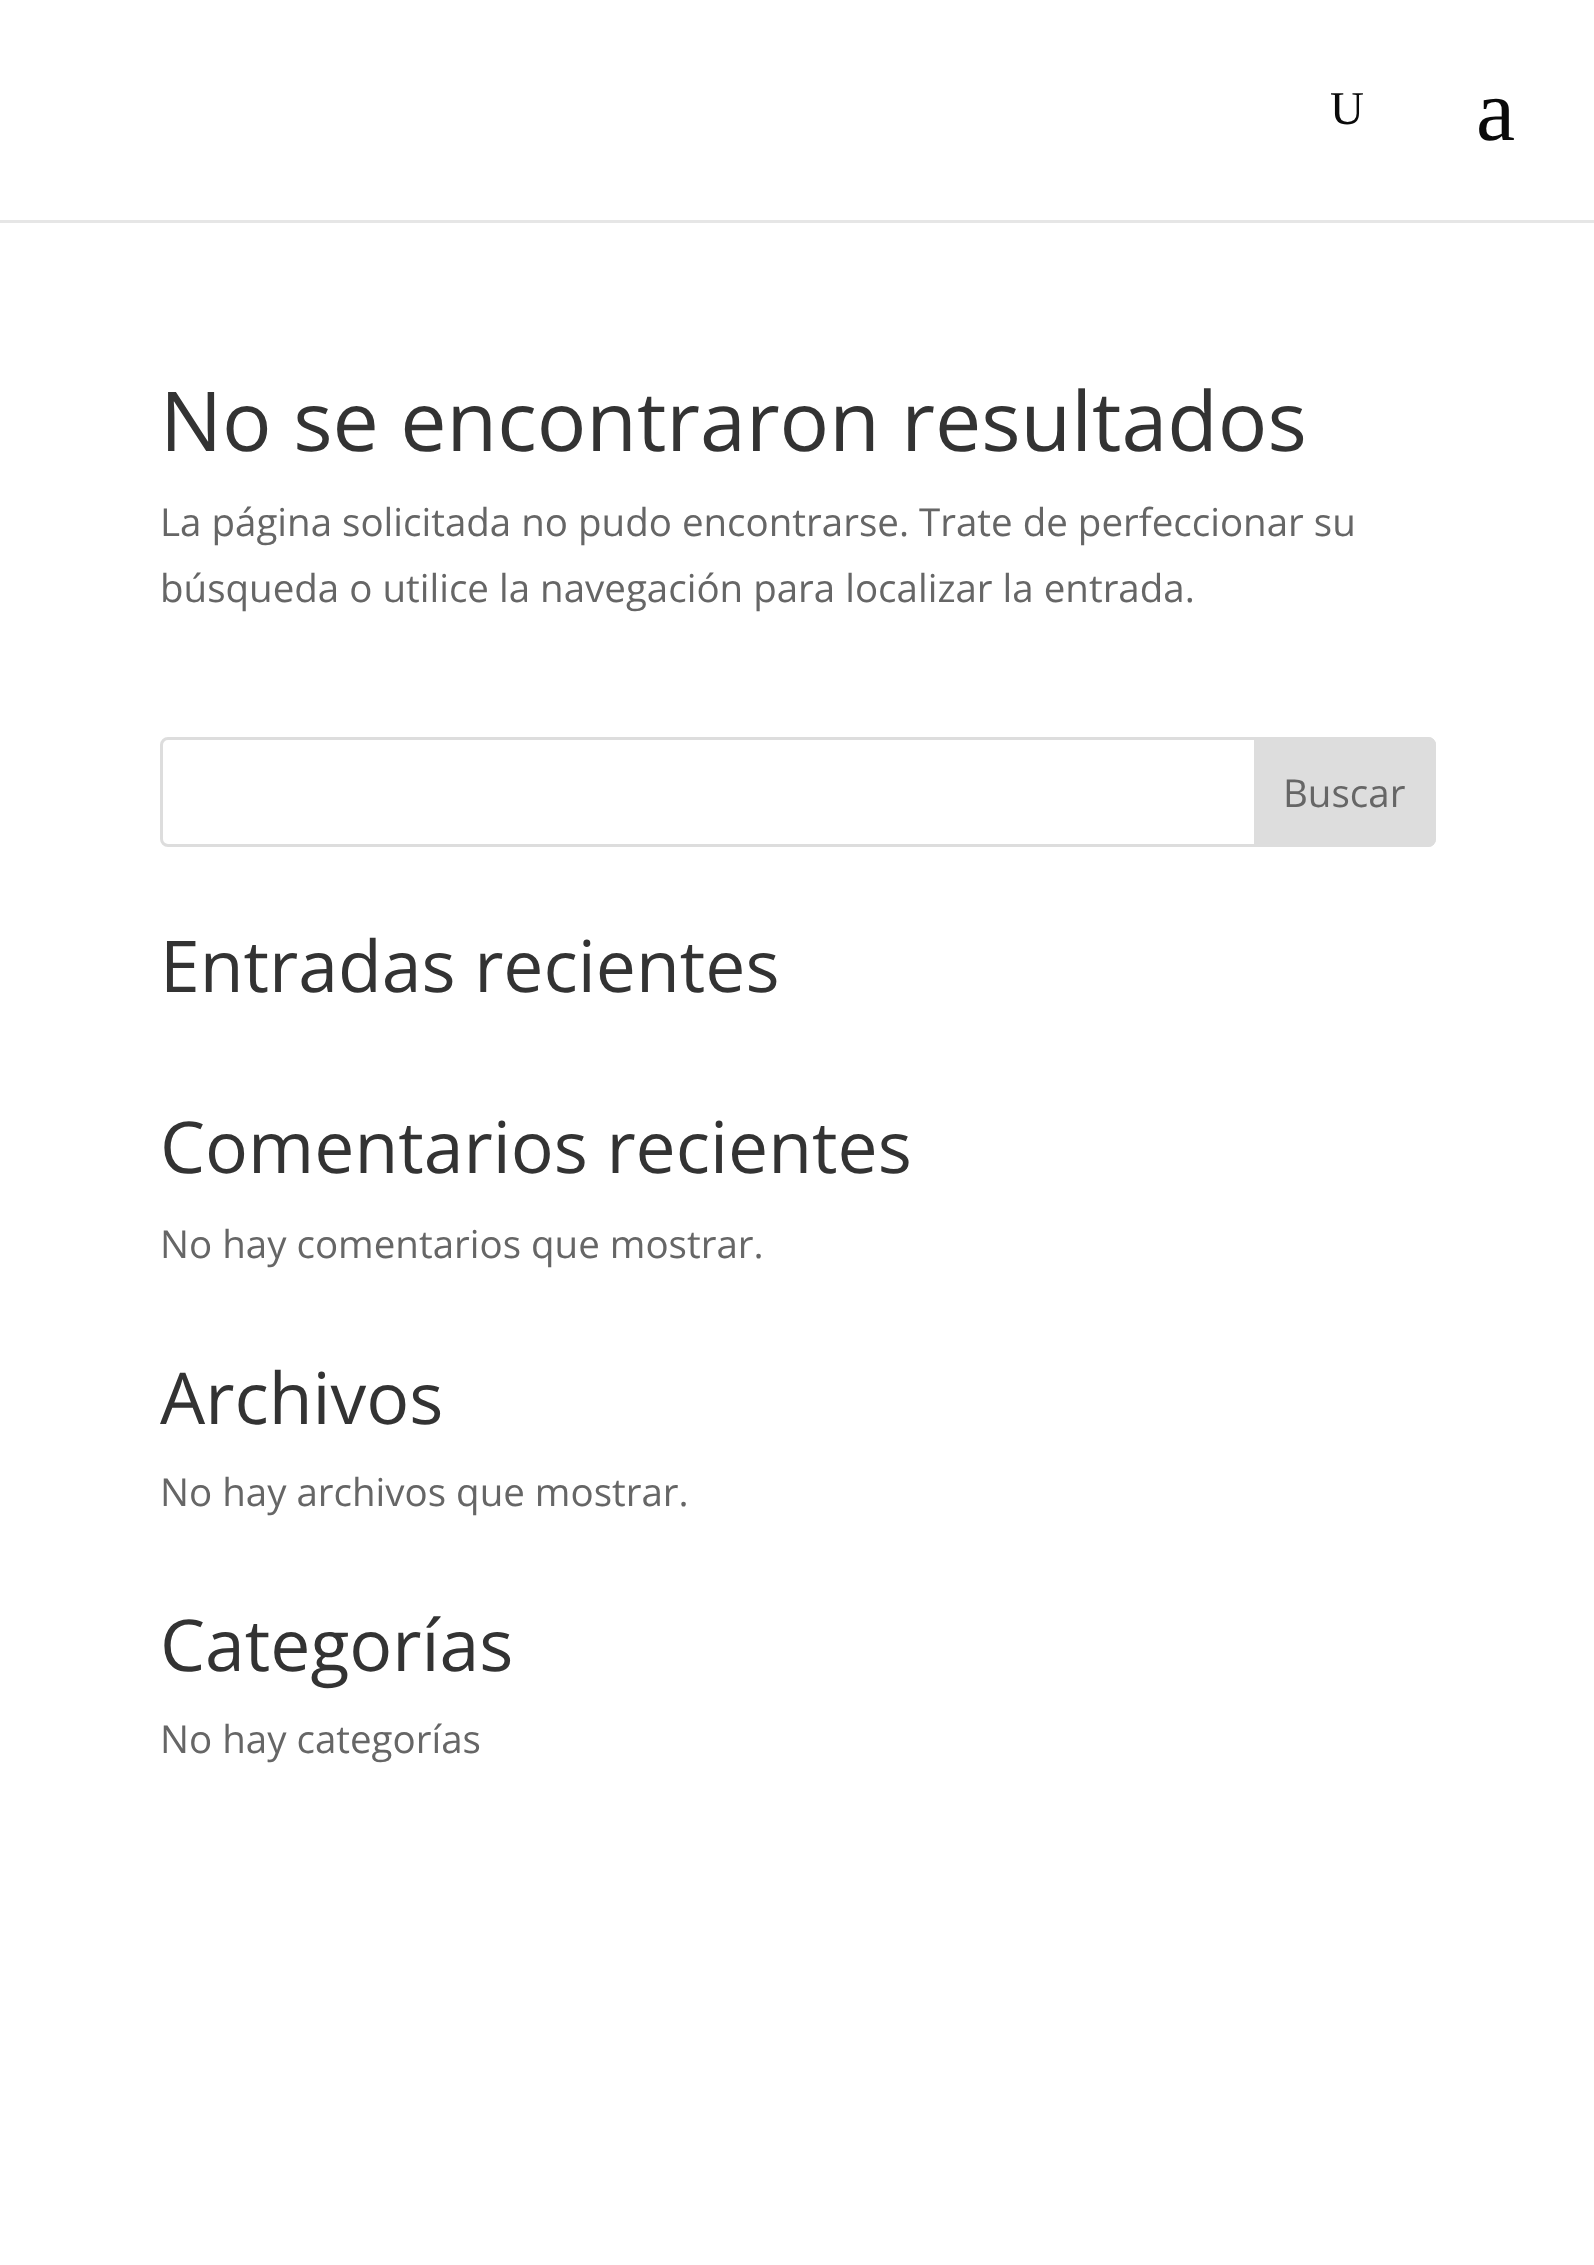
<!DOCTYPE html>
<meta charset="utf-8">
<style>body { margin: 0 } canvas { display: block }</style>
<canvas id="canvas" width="1594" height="2265"></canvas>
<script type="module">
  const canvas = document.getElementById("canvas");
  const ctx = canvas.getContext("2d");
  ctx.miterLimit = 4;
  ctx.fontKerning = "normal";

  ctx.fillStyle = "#ffffff";
  ctx.fillRect(0, 0, 1594, 2265);
  ctx.fillStyle = "#e6e6e6";
  ctx.fillRect(0, 220, 1594, 3);
  ctx.font = "47px Liberation Serif";
  ctx.fillStyle = "#0a0a0a";
  ctx.fillText("U", 1330, 124);
  ctx.font = "88px Liberation Serif";
  ctx.fillText("a", 1476, 140);
  ctx.font = "82.5px Open Sans";
  ctx.fillStyle = "#333333";
  ctx.fillText("No se encontraron resultados", 160, 451);
  ctx.font = "38.5px Open Sans";
  ctx.fillStyle = "#666666";
  ctx.fillText("La página solicitada no pudo encontrarse. Trate de perfeccionar su", 160, 536);
  ctx.fillText("búsqueda o utilice la navegación para localizar la entrada.", 160, 602);
  ctx.beginPath();
  ctx.roundRect(161.5, 738.5, 1273, 107, 6.5);
  ctx.strokeStyle = "#dddddd";
  ctx.lineWidth = 3;
  ctx.stroke();
  ctx.fillStyle = "#dddddd";
  ctx.beginPath();
  ctx.roundRect(1255.5, 738.5, 179, 107, [0, 6.5, 6.5, 0]);
  ctx.fill();
  ctx.stroke();
  ctx.fillStyle = "#666666";
  ctx.fillText("Buscar", 1283, 807);
  ctx.font = "71.5px Open Sans";
  ctx.fillStyle = "#333333";
  ctx.fillText("Entradas recientes", 160, 992);
  ctx.fillText("Comentarios recientes", 160, 1173);
  ctx.font = "38.5px Open Sans";
  ctx.fillStyle = "#666666";
  ctx.fillText("No hay comentarios que mostrar.", 160, 1258);
  ctx.font = "71.5px Open Sans";
  ctx.fillStyle = "#333333";
  ctx.fillText("Archivos", 160, 1424);
  ctx.font = "38.5px Open Sans";
  ctx.fillStyle = "#666666";
  ctx.fillText("No hay archivos que mostrar.", 160, 1506);
  ctx.font = "71.5px Open Sans";
  ctx.fillStyle = "#333333";
  ctx.fillText("Categorías", 160, 1671);
  ctx.font = "38.5px Open Sans";
  ctx.fillStyle = "#666666";
  ctx.fillText("No hay categorías", 160, 1753);
</script>
